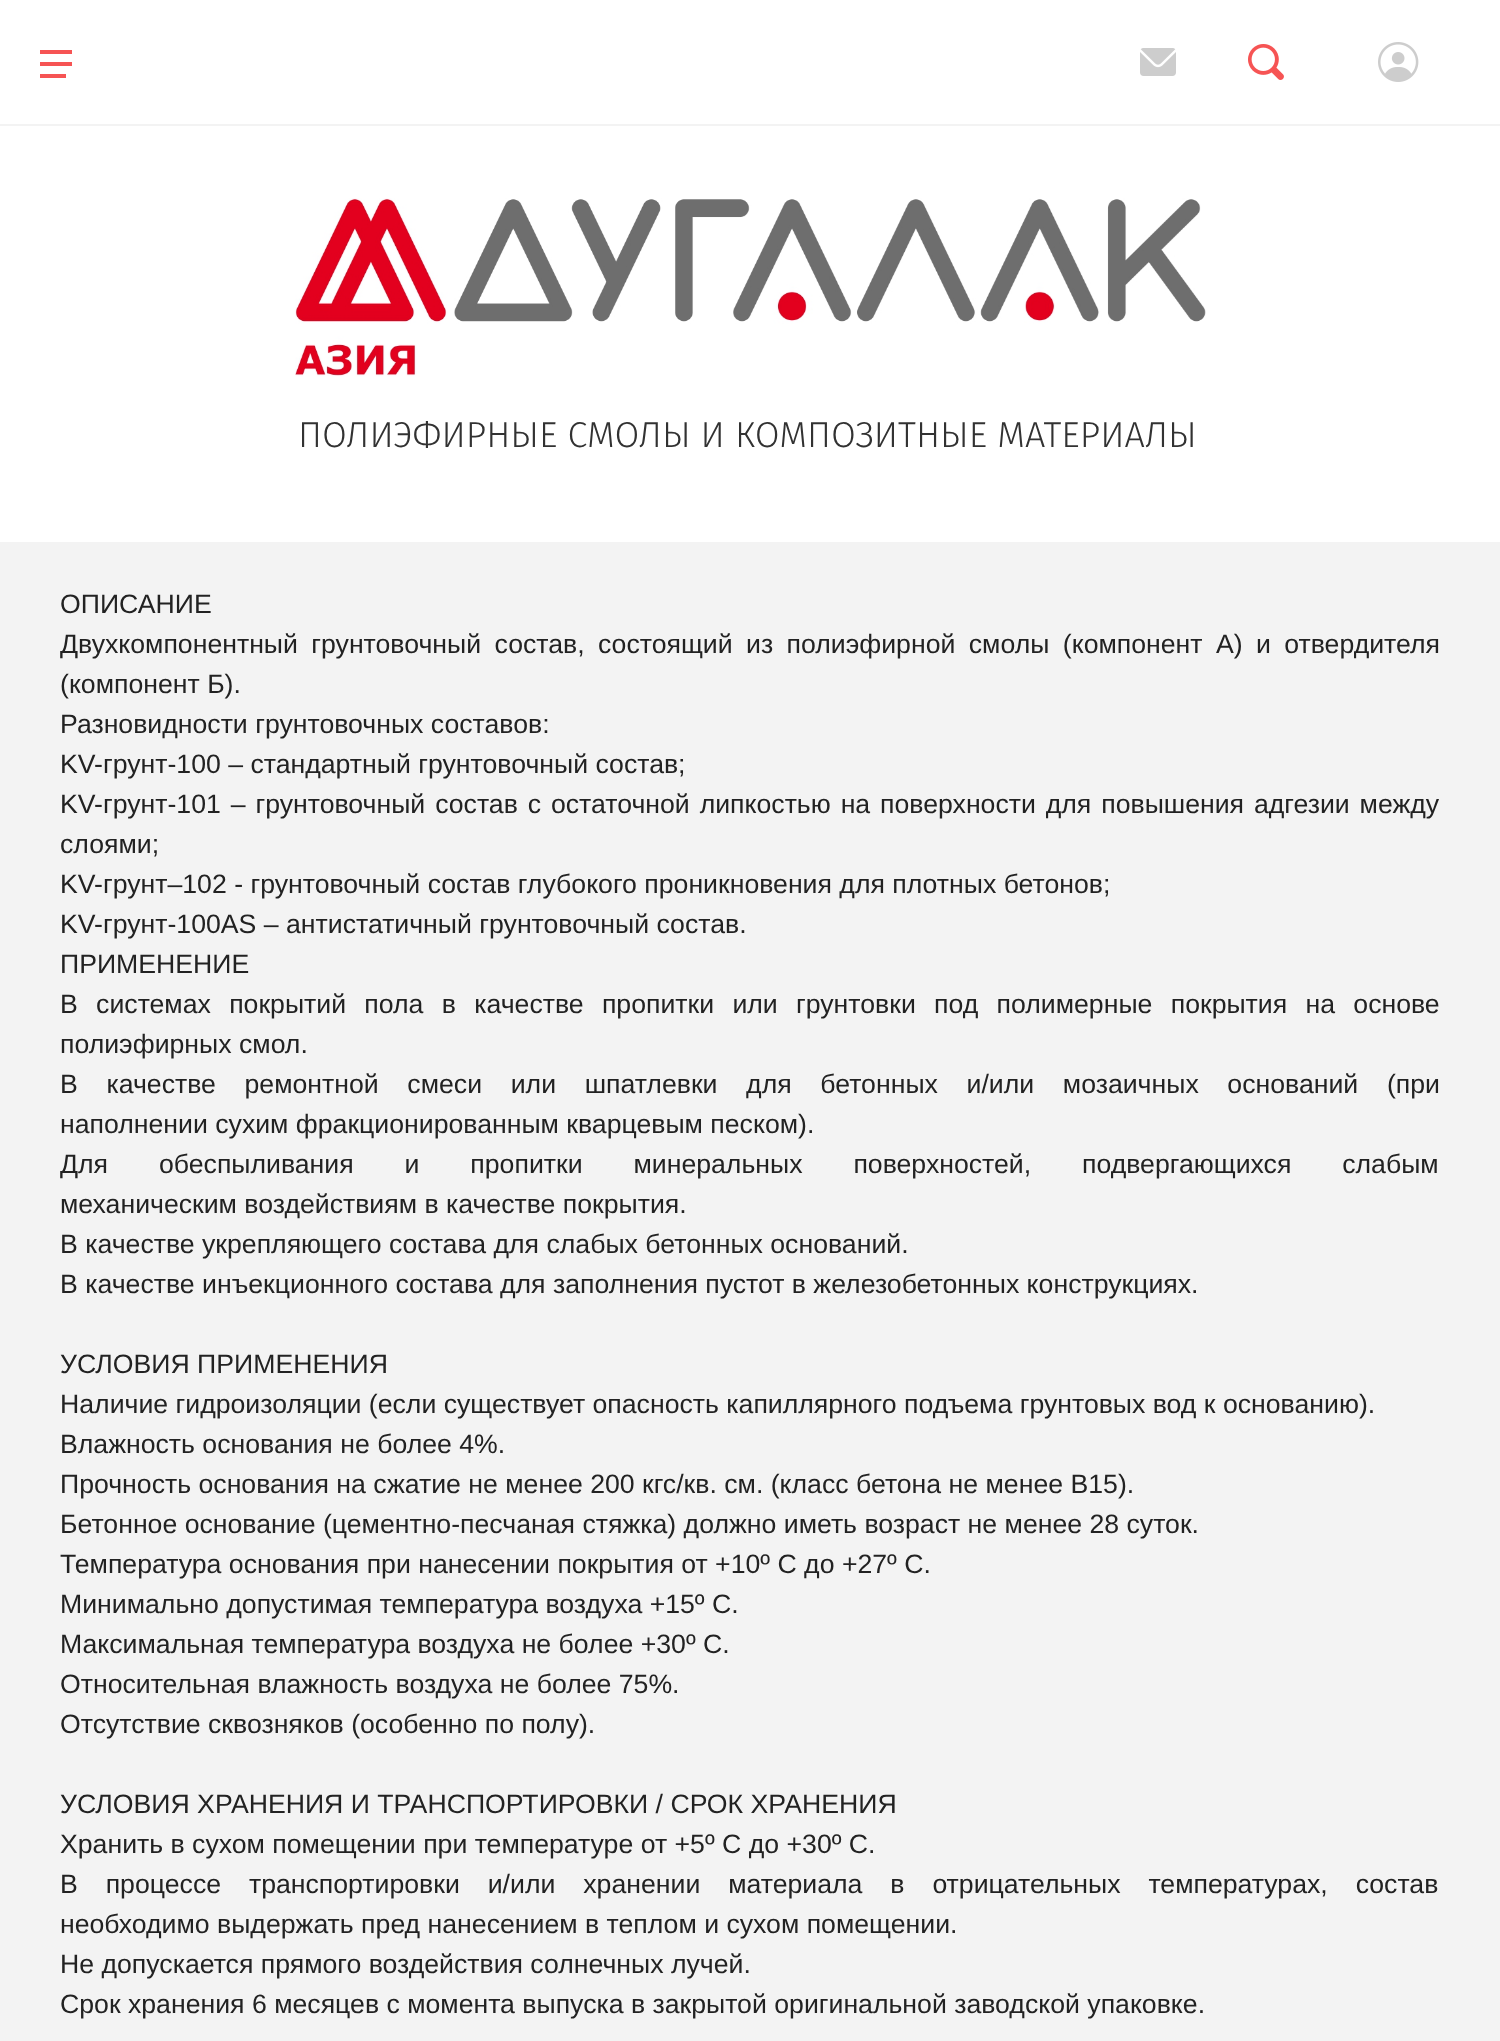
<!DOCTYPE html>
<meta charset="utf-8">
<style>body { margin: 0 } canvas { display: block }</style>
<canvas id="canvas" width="1500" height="2041"></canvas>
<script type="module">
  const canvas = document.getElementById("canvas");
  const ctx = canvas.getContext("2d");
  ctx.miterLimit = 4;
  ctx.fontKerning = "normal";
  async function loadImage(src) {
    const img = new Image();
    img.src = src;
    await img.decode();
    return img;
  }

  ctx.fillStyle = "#f3f3f3";
  ctx.fillRect(0, 0, 1500, 2041);
  ctx.fillStyle = "#ffffff";
  ctx.fillRect(0, 0, 1500, 542);
  ctx.fillStyle = "#f65454";
  ctx.fillRect(40, 50, 32, 4);
  ctx.fillRect(40, 62, 32, 4);
  ctx.fillRect(40, 74, 26, 4);
  ctx.drawImage(await loadImage("img1.png"), 1140, 48, 36, 28);
  ctx.drawImage(await loadImage("img2.png"), 1248, 44, 36, 36);
  ctx.drawImage(await loadImage("img3.png"), 1378, 42, 41, 40);
  ctx.fillStyle = "#f3f3f3";
  ctx.fillRect(0, 124, 1500, 2);
  ctx.drawImage(await loadImage("img4.png"), 295, 198, 911, 179);
  ctx.font = "300 36px Fira Sans";
  ctx.fillStyle = "#323232";
  ctx.fillText("ПОЛИЭФИРНЫЕ СМОЛЫ И КОМПОЗИТНЫЕ МАТЕРИАЛЫ", 298, 447);
  ctx.font = "26.67px Liberation Sans";
  ctx.fillStyle = "#222222";
  ctx.fillText("ОПИСАНИЕ", 60, 613);
  ctx.wordSpacing = "6px";
  ctx.fillText("Двухкомпонентный грунтовочный состав, состоящий из полиэфирной смолы (компонент А) и отвердителя", 60, 653);
  ctx.wordSpacing = "0px";
  ctx.fillText("(компонент Б).", 60, 693);
  ctx.fillText("Разновидности грунтовочных составов:", 60, 733);
  ctx.fillText("KV-грунт-100 – стандартный грунтовочный состав;", 60, 773);
  ctx.wordSpacing = "2.5px";
  ctx.fillText("KV-грунт-101 – грунтовочный состав с остаточной липкостью на поверхности для повышения адгезии между", 60, 813);
  ctx.wordSpacing = "0px";
  ctx.fillText("слоями;", 60, 853);
  ctx.fillText("KV-грунт–102 - грунтовочный состав глубокого проникновения для плотных бетонов;", 60, 893);
  ctx.fillText("KV-грунт-100AS – антистатичный грунтовочный состав.", 60, 933);
  ctx.fillText("ПРИМЕНЕНИЕ", 60, 973);
  ctx.wordSpacing = "10.9px";
  ctx.fillText("В системах покрытий пола в качестве пропитки или грунтовки под полимерные покрытия на основе", 60, 1013);
  ctx.wordSpacing = "0px";
  ctx.fillText("полиэфирных смол.", 60, 1053);
  ctx.wordSpacing = "21.25px";
  ctx.fillText("В качестве ремонтной смеси или шпатлевки для бетонных и/или мозаичных оснований (при", 60, 1093);
  ctx.wordSpacing = "0px";
  ctx.fillText("наполнении сухим фракционированным кварцевым песком).", 60, 1133);
  ctx.wordSpacing = "43.5px";
  ctx.fillText("Для обеспыливания и пропитки минеральных поверхностей, подвергающихся слабым", 60, 1173);
  ctx.wordSpacing = "0px";
  ctx.fillText("механическим воздействиям в качестве покрытия.", 60, 1213);
  ctx.fillText("В качестве укрепляющего состава для слабых бетонных оснований.", 60, 1253);
  ctx.fillText("В качестве инъекционного состава для заполнения пустот в железобетонных конструкциях.", 60, 1293);
  ctx.fillText("УСЛОВИЯ ПРИМЕНЕНИЯ", 60, 1373);
  ctx.fillText("Наличие гидроизоляции (если существует опасность капиллярного подъема грунтовых вод к основанию).", 60, 1413);
  ctx.fillText("Влажность основания не более 4%.", 60, 1453);
  ctx.fillText("Прочность основания на сжатие не менее 200 кгс/кв. см. (класс бетона не менее В15).", 60, 1493);
  ctx.fillText("Бетонное основание (цементно-песчаная стяжка) должно иметь возраст не менее 28 суток.", 60, 1533);
  ctx.fillText("Температура основания при нанесении покрытия от +10º С до +27º С.", 60, 1573);
  ctx.fillText("Минимально допустимая температура воздуха +15º С.", 60, 1613);
  ctx.fillText("Максимальная температура воздуха не более +30º С.", 60, 1653);
  ctx.fillText("Относительная влажность воздуха не более 75%.", 60, 1693);
  ctx.fillText("Отсутствие сквозняков (особенно по полу).", 60, 1733);
  ctx.fillText("УСЛОВИЯ ХРАНЕНИЯ И ТРАНСПОРТИРОВКИ / СРОК ХРАНЕНИЯ", 60, 1813);
  ctx.fillText("Хранить в сухом помещении при температуре от +5º С до +30º С.", 60, 1853);
  ctx.wordSpacing = "20.5px";
  ctx.fillText("В процессе транспортировки и/или хранении материала в отрицательных температурах, состав", 60, 1893);
  ctx.wordSpacing = "0px";
  ctx.fillText("необходимо выдержать пред нанесением в теплом и сухом помещении.", 60, 1933);
  ctx.fillText("Не допускается прямого воздействия солнечных лучей.", 60, 1973);
  ctx.fillText("Срок хранения 6 месяцев с момента выпуска в закрытой оригинальной заводской упаковке.", 60, 2013);
</script>
